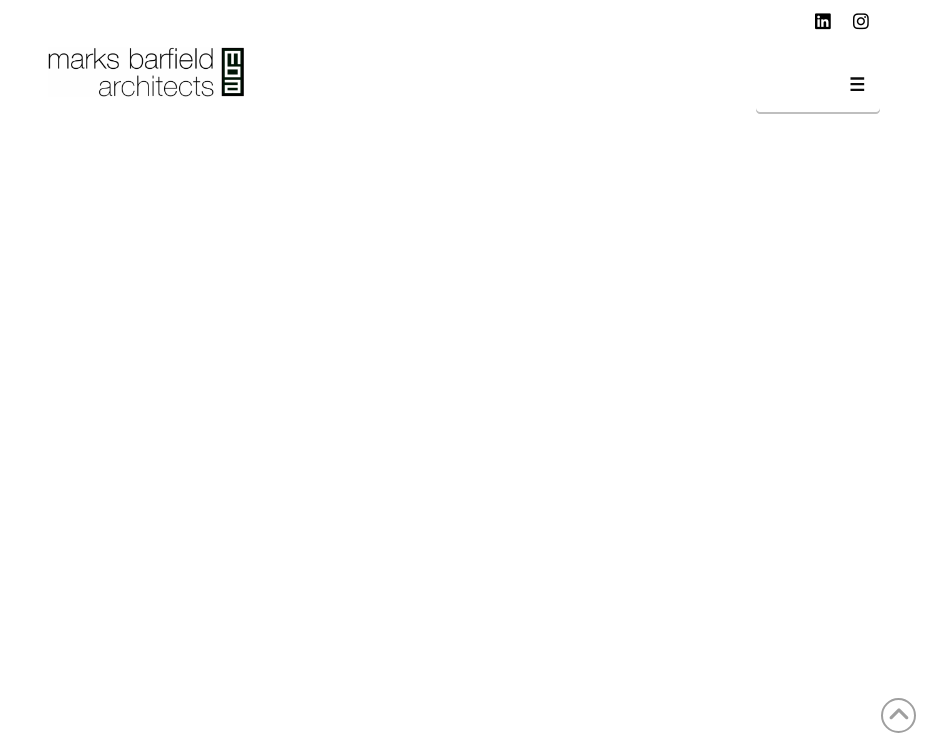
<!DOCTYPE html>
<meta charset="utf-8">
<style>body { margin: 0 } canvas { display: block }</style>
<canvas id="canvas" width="926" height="743"></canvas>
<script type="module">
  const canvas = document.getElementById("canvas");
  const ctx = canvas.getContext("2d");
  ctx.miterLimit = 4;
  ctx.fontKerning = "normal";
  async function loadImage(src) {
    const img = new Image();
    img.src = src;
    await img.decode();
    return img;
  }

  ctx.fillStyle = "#ffffff";
  ctx.fillRect(0, 0, 926, 743);
  ctx.drawImage(await loadImage("img1.png"), 815, 13, 16, 17);
  ctx.drawImage(await loadImage("img2.png"), 853, 13, 16, 17);
  ctx.drawImage(await loadImage("img3.png"), 48, 47, 196, 50);
  ctx.fillStyle = "#bfbfbf";
  ctx.beginPath();
  ctx.moveTo(756, 108);
  ctx.lineTo(756, 110);
  ctx.bezierCurveTo(756, 112, 758, 114, 760, 114);
  ctx.lineTo(876, 114);
  ctx.bezierCurveTo(878, 114, 880, 112, 880, 110);
  ctx.lineTo(880, 108);
  ctx.bezierCurveTo(880, 110, 878, 112, 876, 112);
  ctx.lineTo(760, 112);
  ctx.bezierCurveTo(758, 112, 756, 110, 756, 108);
  ctx.closePath();
  ctx.fill();
  ctx.font = "bold 18px DejaVu Sans";
  ctx.fillStyle = "#0c0c0c";
  ctx.fillText("☰", 849, 91);
  ctx.beginPath();
  ctx.arc(898.5, 715.5, 16.5, 0, Math.PI * 2);
  ctx.strokeStyle = "#9f9f9f";
  ctx.lineWidth = 2;
  ctx.stroke();
  ctx.drawImage(await loadImage("img4.png"), 889, 708, 20, 12);
</script>
